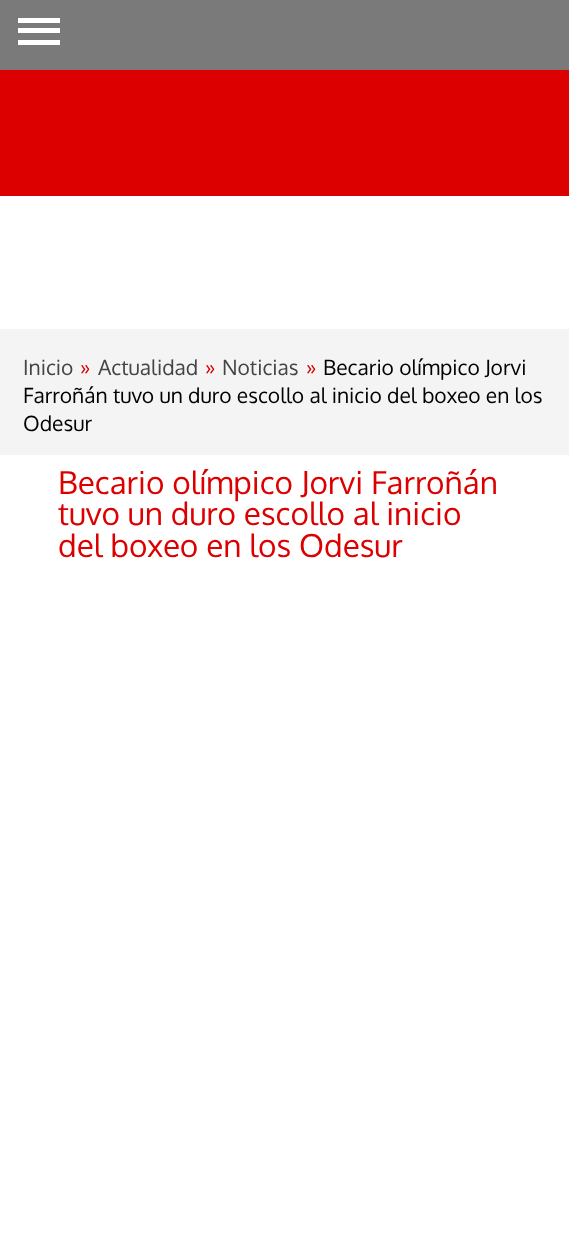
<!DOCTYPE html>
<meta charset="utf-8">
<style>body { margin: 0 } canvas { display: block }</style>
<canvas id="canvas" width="569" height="1241"></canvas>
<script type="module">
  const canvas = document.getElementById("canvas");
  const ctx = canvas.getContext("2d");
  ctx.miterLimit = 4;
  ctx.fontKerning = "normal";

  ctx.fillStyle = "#ffffff";
  ctx.fillRect(0, 0, 569, 1241);
  ctx.fillStyle = "#dc0000";
  ctx.fillRect(0, 70, 569, 126);
  ctx.fillStyle = "#7a7a7a";
  ctx.fillRect(0, 0, 569, 70);
  ctx.fillStyle = "#ffffff";
  ctx.fillRect(18, 40, 42, 5);
  ctx.fillRect(18, 28, 42, 5);
  ctx.fillRect(18, 18, 42, 5);
  ctx.fillStyle = "#f4f4f4";
  ctx.fillRect(0, 329, 569, 126);
  ctx.font = "21px Oxygen";
  ctx.fillStyle = "#444444";
  ctx.fillText("Inicio", 23, 375);
  ctx.fillStyle = "#dc0000";
  ctx.fillText("»", 80, 375);
  ctx.fillStyle = "#444444";
  ctx.fillText("Actualidad", 98, 375);
  ctx.fillStyle = "#dc0000";
  ctx.fillText("»", 205, 375);
  ctx.fillStyle = "#444444";
  ctx.fillText("Noticias", 222, 375);
  ctx.fillStyle = "#dc0000";
  ctx.fillText("»", 306, 375);
  ctx.fillStyle = "#000000";
  ctx.fillText("Becario olímpico Jorvi", 323, 375);
  ctx.fillText("Farroñán tuvo un duro escollo al inicio del boxeo en los", 23, 403);
  ctx.fillText("Odesur", 23, 431);
  ctx.font = "31.5px Oxygen";
  ctx.fillStyle = "#dc0000";
  ctx.fillText("Becario olímpico Jorvi Farroñán", 58, 494);
  ctx.fillText("tuvo un duro escollo al inicio", 58, 525);
  ctx.fillText("del boxeo en los Odesur", 58, 557);
</script>
